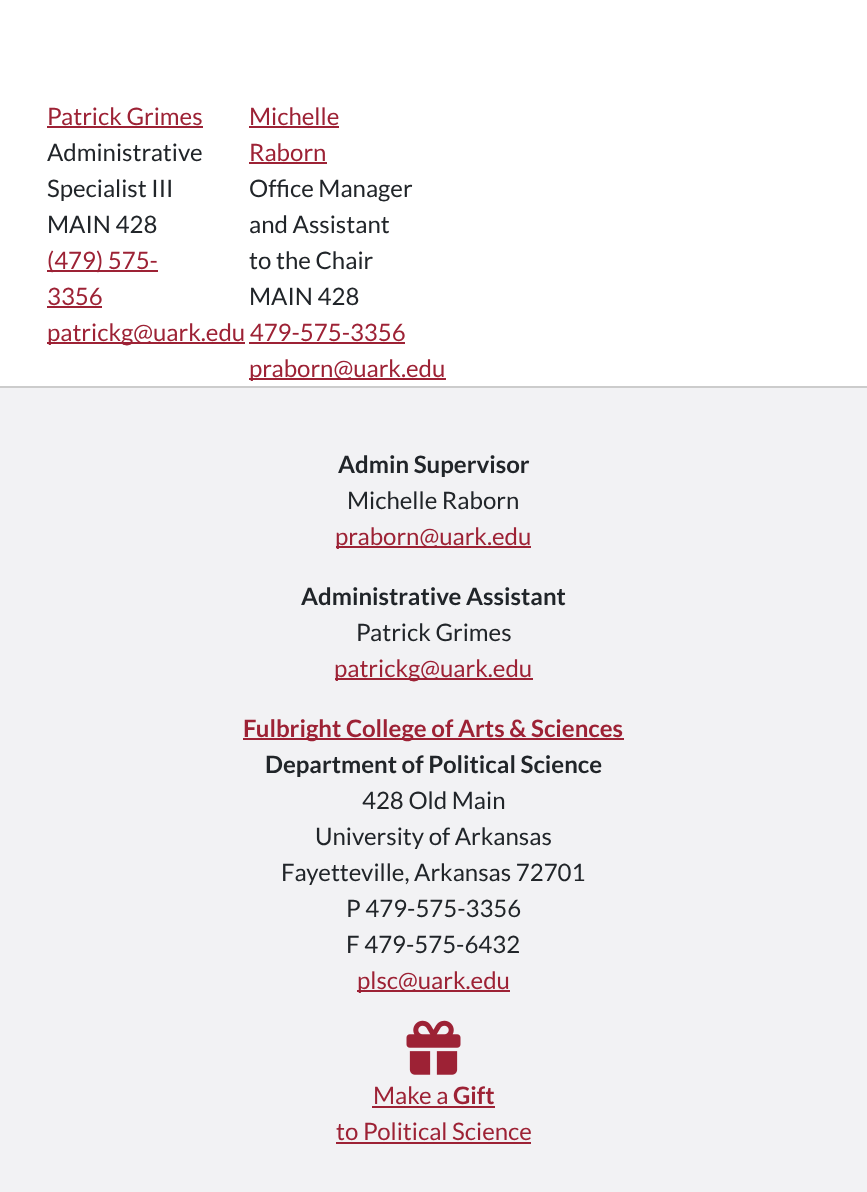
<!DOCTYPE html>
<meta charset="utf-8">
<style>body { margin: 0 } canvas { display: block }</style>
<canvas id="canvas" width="867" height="1192"></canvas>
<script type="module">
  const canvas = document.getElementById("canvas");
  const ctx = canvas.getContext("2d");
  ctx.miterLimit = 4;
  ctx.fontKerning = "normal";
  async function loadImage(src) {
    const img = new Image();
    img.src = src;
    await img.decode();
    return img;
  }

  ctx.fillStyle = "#ffffff";
  ctx.fillRect(0, 0, 867, 1192);
  ctx.font = "24px Lato";
  ctx.fillStyle = "#9d2235";
  ctx.fillText("Patrick Grimes", 47, 125);
  ctx.fillRect(47, 126, 156, 2);
  ctx.fillStyle = "#212529";
  ctx.fillText("Administrative", 47, 161);
  ctx.fillText("Specialist III", 47, 197);
  ctx.fillText("MAIN 428", 47, 233);
  ctx.fillStyle = "#9d2235";
  ctx.fillRect(47, 270, 111, 2);
  ctx.fillText("(479) 575-", 47, 269);
  ctx.fillText("3356", 47, 305);
  ctx.fillRect(47, 306, 55, 2);
  ctx.fillRect(47, 342, 198, 2);
  ctx.fillText("patrickg@uark.edu 479-575-3356", 47, 341);
  ctx.fillText("Michelle", 249, 125);
  ctx.fillRect(249, 126, 90, 2);
  ctx.fillText("Raborn", 249, 161);
  ctx.fillRect(249, 162, 78, 2);
  ctx.fillStyle = "#212529";
  ctx.fillText("Office Manager", 249, 197);
  ctx.fillText("and Assistant", 249, 233);
  ctx.fillText("to the Chair", 249, 269);
  ctx.fillText("MAIN 428", 249, 305);
  ctx.fillStyle = "#9d2235";
  ctx.fillRect(249, 342, 156, 2);
  ctx.fillRect(249, 378, 197, 2);
  ctx.fillText("praborn@uark.edu", 249, 377);
  ctx.fillStyle = "#f2f2f4";
  ctx.fillRect(0, 388, 867, 804);
  ctx.fillStyle = "#cccccc";
  ctx.fillRect(0, 386, 867, 2);
  ctx.font = "bold 24px Lato";
  ctx.fillStyle = "#212529";
  ctx.fillText("Admin Supervisor", 338, 473);
  ctx.font = "24px Lato";
  ctx.fillText("Michelle Raborn", 347, 509);
  ctx.fillStyle = "#9d2235";
  ctx.fillRect(336, 546, 195, 2);
  ctx.fillText("praborn@uark.edu", 335, 545);
  ctx.font = "bold 24px Lato";
  ctx.fillStyle = "#212529";
  ctx.fillText("Administrative Assistant", 301, 605);
  ctx.font = "24px Lato";
  ctx.fillText("Patrick Grimes", 356, 641);
  ctx.fillStyle = "#9d2235";
  ctx.fillRect(335, 678, 198, 2);
  ctx.fillText("patrickg@uark.edu", 334, 677);
  ctx.fillRect(243, 738, 381, 2);
  ctx.font = "bold 24px Lato";
  ctx.fillText("Fulbright College of Arts & Sciences", 243, 737);
  ctx.fillStyle = "#212529";
  ctx.fillText("Department of Political Science", 265, 773);
  ctx.font = "24px Lato";
  ctx.fillText("428 Old Main", 362, 809);
  ctx.fillText("University of Arkansas", 315, 845);
  ctx.fillText("Fayetteville, Arkansas 72701", 281, 881);
  ctx.fillText("P 479-575-3356", 346, 917);
  ctx.fillText("F 479-575-6432", 346, 953);
  ctx.fillStyle = "#9d2235";
  ctx.fillRect(357, 990, 153, 2);
  ctx.fillText("plsc@uark.edu", 357, 989);
  ctx.drawImage(await loadImage("img1.png"), 406, 1020, 55, 55);
  ctx.fillText("Make a", 373, 1104);
  ctx.fillRect(372, 1106, 123, 2);
  ctx.font = "bold 24px Lato";
  ctx.fillText("Gift", 453, 1104);
  ctx.font = "24px Lato";
  ctx.fillText("to Political Science", 336, 1140);
  ctx.fillRect(336, 1142, 195, 2);
</script>
